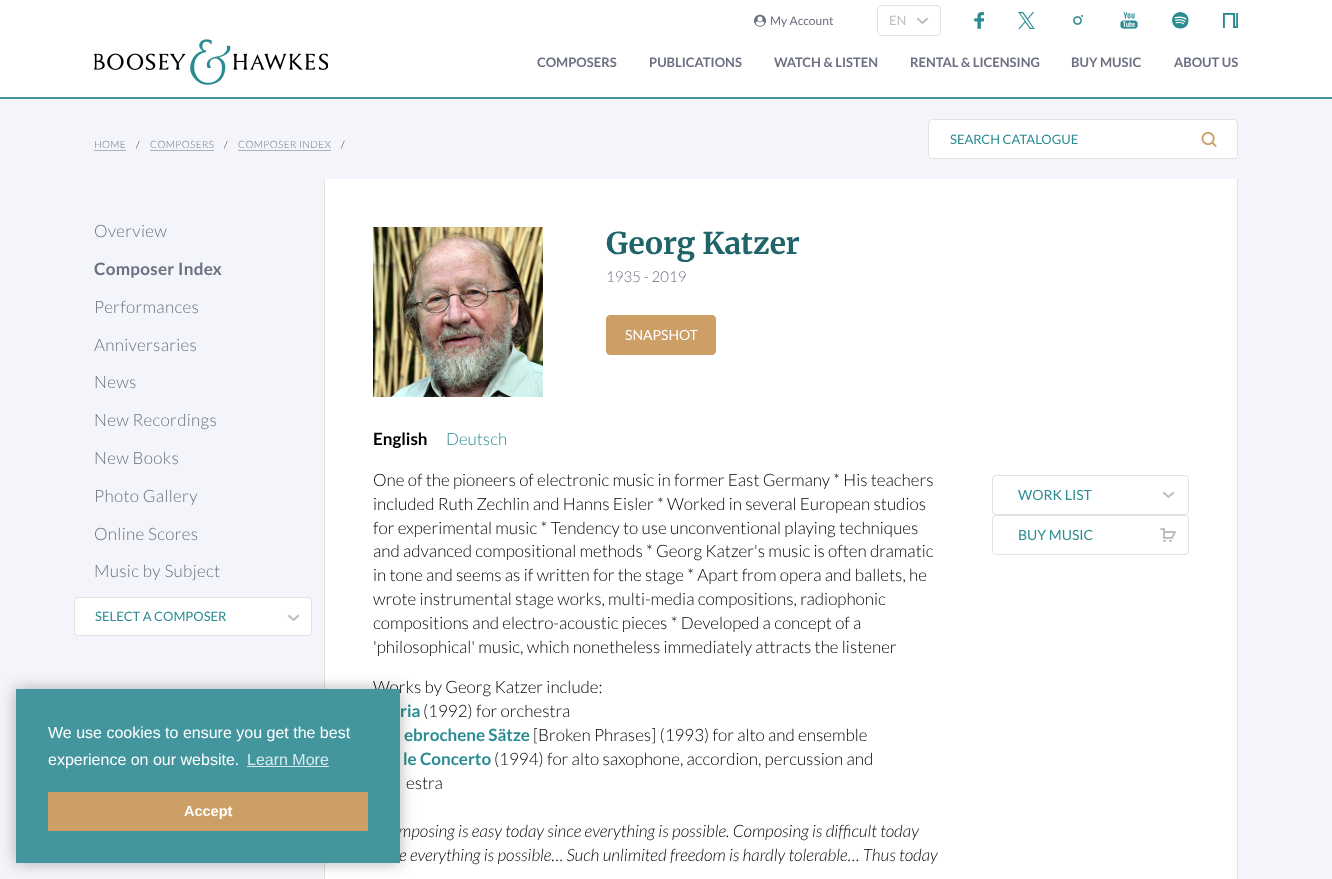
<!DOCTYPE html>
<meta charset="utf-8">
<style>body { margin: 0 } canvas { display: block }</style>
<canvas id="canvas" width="1332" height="879"></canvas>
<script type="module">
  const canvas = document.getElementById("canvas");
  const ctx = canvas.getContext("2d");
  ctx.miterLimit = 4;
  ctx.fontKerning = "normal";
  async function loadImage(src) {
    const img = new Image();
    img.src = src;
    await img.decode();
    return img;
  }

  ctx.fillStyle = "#f4f5fa";
  ctx.fillRect(0, 0, 1332, 879);
  ctx.fillStyle = "#ffffff";
  ctx.fillRect(0, 0, 1332, 97);
  ctx.drawImage(await loadImage("img1.png"), 754, 14, 12, 13);
  ctx.font = "12px Lato";
  ctx.fillStyle = "#6b6f81";
  ctx.fillText("My Account", 770, 25);
  ctx.beginPath();
  ctx.roundRect(877.5, 5.5, 63, 30, 3.5);
  ctx.strokeStyle = "#e2e2e2";
  ctx.stroke();
  ctx.font = "13px Lato";
  ctx.fillStyle = "#bbbdbf";
  ctx.fillText("EN", 889, 25);
  ctx.beginPath();
  ctx.moveTo(927, 19);
  ctx.lineTo(922.5, 23);
  ctx.lineTo(918, 19);
  ctx.strokeStyle = "#bbbdbf";
  ctx.lineWidth = 2;
  ctx.lineCap = "square";
  ctx.stroke();
  ctx.drawImage(await loadImage("img2.png"), 974, 12, 10, 17);
  ctx.drawImage(await loadImage("img3.png"), 1018, 12, 17, 17);
  ctx.drawImage(await loadImage("img4.png"), 1073, 15, 10, 10);
  ctx.drawImage(await loadImage("img5.png"), 1120, 12, 18, 17);
  ctx.drawImage(await loadImage("img6.png"), 1172, 12, 17, 17);
  ctx.drawImage(await loadImage("img7.png"), 1223, 13, 15, 15);
  ctx.drawImage(await loadImage("img8.png"), 94, 39, 234, 46);
  ctx.font = "bold 13px Lato";
  ctx.fillStyle = "#6b6f81";
  ctx.fillText("COMPOSERS", 537, 67);
  ctx.fillText("PUBLICATIONS", 649, 67);
  ctx.fillText("WATCH & LISTEN", 774, 67);
  ctx.fillText("RENTAL & LICENSING", 910, 67);
  ctx.fillText("BUY MUSIC", 1071, 67);
  ctx.fillText("ABOUT US", 1174, 67);
  ctx.fillStyle = "#43969e";
  ctx.fillRect(0, 97, 1332, 2);
  ctx.letterSpacing = "0.4px";
  ctx.font = "300 10px Lato";
  ctx.fillStyle = "#6b6f81";
  ctx.fillText("HOME", 94, 148);
  ctx.fillStyle = "#b0b2be";
  ctx.fillRect(94, 150, 32, 1);
  ctx.fillStyle = "#000000";
  ctx.fillText("/", 136, 148);
  ctx.fillStyle = "#6b6f81";
  ctx.fillText("COMPOSERS", 150, 148);
  ctx.fillStyle = "#b0b2be";
  ctx.fillRect(150, 150, 64, 1);
  ctx.fillStyle = "#000000";
  ctx.fillText("/", 224, 148);
  ctx.fillStyle = "#6b6f81";
  ctx.fillText("COMPOSER INDEX", 238, 148);
  ctx.fillStyle = "#b0b2be";
  ctx.fillRect(238, 150, 93, 1);
  ctx.fillStyle = "#000000";
  ctx.fillText("/", 341, 148);
  ctx.fillStyle = "#ffffff";
  ctx.beginPath();
  ctx.roundRect(928.5, 119.5, 309, 39, 3.5);
  ctx.fill();
  ctx.strokeStyle = "#e2e2e2";
  ctx.lineWidth = 1;
  ctx.stroke();
  ctx.letterSpacing = "0px";
  ctx.font = "13px Lato";
  ctx.fillStyle = "#2a8c92";
  ctx.fillText("SEARCH CATALOGUE", 950, 144);
  ctx.drawImage(await loadImage("img9.png"), 1201, 131, 16, 16);
  ctx.letterSpacing = "0.3px";
  ctx.font = "300 17px Lato";
  ctx.fillStyle = "#6b6f81";
  ctx.fillText("Overview", 94, 237);
  ctx.font = "bold 17px Lato";
  ctx.fillText("Composer Index", 94, 275);
  ctx.font = "300 17px Lato";
  ctx.fillText("Performances", 94, 313);
  ctx.fillText("Anniversaries", 94, 351);
  ctx.fillText("News", 94, 388);
  ctx.fillText("New Recordings", 94, 426);
  ctx.fillText("New Books", 94, 464);
  ctx.fillText("Photo Gallery", 94, 502);
  ctx.fillText("Online Scores", 94, 540);
  ctx.fillText("Music by Subject", 94, 577);
  ctx.fillStyle = "#ffffff";
  ctx.beginPath();
  ctx.roundRect(74.5, 597.5, 237, 38, 3.5);
  ctx.fill();
  ctx.stroke();
  ctx.letterSpacing = "0px";
  ctx.font = "13px Lato";
  ctx.fillStyle = "#2a8c92";
  ctx.fillText("SELECT A COMPOSER", 95, 621);
  ctx.beginPath();
  ctx.moveTo(298, 616);
  ctx.lineTo(293.5, 620);
  ctx.lineTo(289, 616);
  ctx.strokeStyle = "#bbbdbf";
  ctx.lineWidth = 2;
  ctx.stroke();
  ctx.fillStyle = "#ffffff";
  ctx.fillRect(325, 179, 912, 700);
  ctx.fillStyle = "#e2e2e2";
  ctx.fillRect(1237, 179, 1, 700);
  ctx.fillRect(324, 179, 1, 700);
  ctx.drawImage(await loadImage("img10.png"), 373, 227, 170, 170);
  ctx.font = "bold 30px Merriweather";
  ctx.fillStyle = "#1e6468";
  ctx.fillText("Georg Katzer", 606, 254);
  ctx.font = "300 15px Lato";
  ctx.fillStyle = "#6b6f81";
  ctx.fillText("1935 - 2019", 606, 282);
  ctx.fillStyle = "#cc9f66";
  ctx.beginPath();
  ctx.roundRect(606.5, 315.5, 109, 39, 3.5);
  ctx.fill();
  ctx.strokeStyle = "#cc9f66";
  ctx.lineWidth = 1;
  ctx.stroke();
  ctx.font = "14px Lato";
  ctx.fillStyle = "#ffffff";
  ctx.fillText("SNAPSHOT", 625, 340);
  ctx.font = "bold 17px Lato";
  ctx.fillStyle = "#000000";
  ctx.fillText("English", 373, 445);
  ctx.font = "300 17px Lato";
  ctx.fillStyle = "#2a8c92";
  ctx.fillText("Deutsch", 446, 445);
  ctx.fillStyle = "#000000";
  ctx.fillText("One of the pioneers of electronic music in former East Germany * His teachers", 373, 486);
  ctx.fillText("included Ruth Zechlin and Hanns Eisler * Worked in several European studios", 373, 510);
  ctx.fillText("for experimental music * Tendency to use unconventional playing techniques", 373, 534);
  ctx.fillText("and advanced compositional methods * Georg Katzer's music is often dramatic", 373, 557);
  ctx.fillText("in tone and seems as if written for the stage * Apart from opera and ballets, he", 373, 581);
  ctx.fillText("wrote instrumental stage works, multi-media compositions, radiophonic", 373, 605);
  ctx.fillText("compositions and electro-acoustic pieces * Developed a concept of a", 373, 629);
  ctx.fillText("'philosophical' music, which nonetheless immediately attracts the listener", 373, 653);
  ctx.fillText("Works by Georg Katzer include:", 373, 693);
  ctx.font = "bold 17px Lato";
  ctx.fillStyle = "#2a8c92";
  ctx.fillText("ria", 400, 717);
  ctx.font = "300 17px Lato";
  ctx.fillStyle = "#000000";
  ctx.fillText("(1992) for orchestra", 423, 717);
  ctx.font = "bold 17px Lato";
  ctx.fillStyle = "#2a8c92";
  ctx.fillText("ebrochene Sätze", 404, 741);
  ctx.font = "300 17px Lato";
  ctx.fillStyle = "#000000";
  ctx.fillText("[Broken Phrases] (1993) for alto and ensemble", 533, 741);
  ctx.font = "bold 17px Lato";
  ctx.fillStyle = "#2a8c92";
  ctx.fillText("le Concerto", 403, 765);
  ctx.font = "300 17px Lato";
  ctx.fillStyle = "#000000";
  ctx.fillText("(1994) for alto saxophone, accordion, percussion and", 494, 765);
  ctx.fillText("estra", 406, 789);
  ctx.font = "italic 300 17px Lato";
  ctx.fillText("mposing is easy today since everything is possible. Composing is difficult today", 398, 837);
  ctx.fillText("e everything is possible… Such unlimited freedom is hardly tolerable… Thus today", 399, 861);
  ctx.beginPath();
  ctx.roundRect(992.5, 475.5, 196, 39, 3.5);
  ctx.strokeStyle = "#e2e2e2";
  ctx.stroke();
  ctx.font = "14px Lato";
  ctx.fillStyle = "#2a8c92";
  ctx.fillText("WORK LIST", 1018, 500);
  ctx.beginPath();
  ctx.moveTo(1173, 493);
  ctx.lineTo(1168.5, 497);
  ctx.lineTo(1164, 493);
  ctx.strokeStyle = "#bbbdbf";
  ctx.lineWidth = 2;
  ctx.stroke();
  ctx.beginPath();
  ctx.roundRect(992.5, 515.5, 196, 39, 3.5);
  ctx.strokeStyle = "#e2e2e2";
  ctx.lineWidth = 1;
  ctx.stroke();
  ctx.fillText("BUY MUSIC", 1018, 540);
  ctx.drawImage(await loadImage("img11.png"), 1160, 528, 16, 14);
  ctx.fillStyle = "rgba(0, 0, 0, 0.3)";
  ctx.filter = "blur(7.5px)";
  ctx.beginPath();
  ctx.rect(16, 689, 384, 174);
  ctx.fill();
  ctx.filter = "none";
  ctx.fillStyle = "#43969e";
  ctx.fillRect(16, 689, 384, 174);
  ctx.font = "16px Liberation Sans";
  ctx.fillStyle = "#ffffff";
  ctx.fillText("We use cookies to ensure you get the best", 48, 738);
  ctx.fillText("experience on our website.", 48, 765);
  ctx.fillStyle = "#d9eaec";
  ctx.fillText("Learn More", 247, 765);
  ctx.fillRect(247, 766, 82, 1);
  ctx.fillStyle = "#cc9f66";
  ctx.fillRect(48, 792, 320, 39);
  ctx.font = "bold 14.5px Liberation Sans";
  ctx.fillStyle = "#ffffff";
  ctx.fillText("Accept", 184, 816);
</script>
